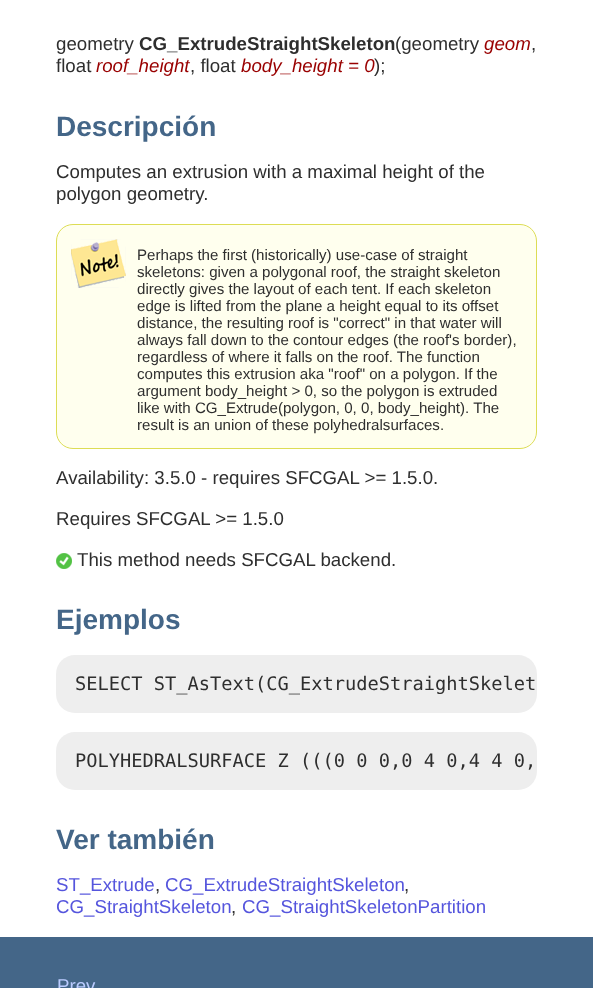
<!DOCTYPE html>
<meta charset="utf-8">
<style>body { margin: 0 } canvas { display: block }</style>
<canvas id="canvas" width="593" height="988"></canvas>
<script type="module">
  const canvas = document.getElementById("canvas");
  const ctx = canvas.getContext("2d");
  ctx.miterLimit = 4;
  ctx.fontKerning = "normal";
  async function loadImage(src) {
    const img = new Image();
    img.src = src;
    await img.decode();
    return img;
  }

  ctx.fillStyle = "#ffffff";
  ctx.fillRect(0, 0, 593, 988);
  ctx.font = "18.7px Liberation Sans";
  ctx.fillStyle = "#2e2e2e";
  ctx.fillText("geometry", 56, 50);
  ctx.font = "bold 18.7px Liberation Sans";
  ctx.fillText("CG_ExtrudeStraightSkeleton", 139, 50);
  ctx.font = "18.7px Liberation Sans";
  ctx.fillText("(geometry", 395, 50);
  ctx.font = "italic 18.7px Liberation Sans";
  ctx.fillStyle = "#990000";
  ctx.fillText("geom", 484, 50);
  ctx.font = "18.7px Liberation Sans";
  ctx.fillStyle = "#2e2e2e";
  ctx.fillText(",", 531, 50);
  ctx.fillText("float", 56, 72);
  ctx.font = "italic 18.7px Liberation Sans";
  ctx.fillStyle = "#990000";
  ctx.fillText("roof_height", 96, 72);
  ctx.font = "18.7px Liberation Sans";
  ctx.fillStyle = "#2e2e2e";
  ctx.fillText(", float", 190, 72);
  ctx.font = "italic 18.7px Liberation Sans";
  ctx.fillStyle = "#990000";
  ctx.fillText("body_height = 0", 241, 72);
  ctx.font = "18.7px Liberation Sans";
  ctx.fillStyle = "#2e2e2e";
  ctx.fillText(");", 374, 72);
  ctx.font = "bold 28px Liberation Sans";
  ctx.fillStyle = "#446688";
  ctx.fillText("Descripción", 56, 136);
  ctx.font = "18.7px Liberation Sans";
  ctx.fillStyle = "#2e2e2e";
  ctx.fillText("Computes an extrusion with a maximal height of the", 56, 178);
  ctx.fillText("polygon geometry.", 56, 200);
  ctx.fillStyle = "#ffffee";
  ctx.beginPath();
  ctx.roundRect(56.5, 224.5, 480, 224, 16.5);
  ctx.fill();
  ctx.strokeStyle = "#dddd55";
  ctx.stroke();
  ctx.drawImage(await loadImage("img1.png"), 71, 239, 55, 49);
  ctx.font = "15.1px Liberation Sans";
  ctx.fillStyle = "#2e2e2e";
  ctx.fillText("Perhaps the first (historically) use-case of straight", 137, 260);
  ctx.fillText("skeletons: given a polygonal roof, the straight skeleton", 137, 277);
  ctx.fillText("directly gives the layout of each tent. If each skeleton", 137, 294);
  ctx.fillText("edge is lifted from the plane a height equal to its offset", 137, 311);
  ctx.fillText("distance, the resulting roof is \"correct\" in that water will", 137, 328);
  ctx.fillText("always fall down to the contour edges (the roof's border),", 137, 345);
  ctx.fillText("regardless of where it falls on the roof. The function", 137, 362);
  ctx.fillText("computes this extrusion aka \"roof\" on a polygon. If the", 137, 379);
  ctx.fillText("argument body_height > 0, so the polygon is extruded", 137, 396);
  ctx.fillText("like with CG_Extrude(polygon, 0, 0, body_height). The", 137, 413);
  ctx.fillText("result is an union of these polyhedralsurfaces.", 137, 430);
  ctx.font = "18.7px Liberation Sans";
  ctx.fillText("Availability: 3.5.0 - requires SFCGAL >= 1.5.0.", 56, 484);
  ctx.fillText("Requires SFCGAL >= 1.5.0", 56, 525);
  ctx.drawImage(await loadImage("img2.png"), 56, 553, 16, 16);
  ctx.fillText("This method needs SFCGAL backend.", 77, 566);
  ctx.font = "bold 28px Liberation Sans";
  ctx.fillStyle = "#446688";
  ctx.fillText("Ejemplos", 56, 629);
  ctx.fillStyle = "#eeeeee";
  ctx.beginPath();
  ctx.roundRect(56, 655, 481, 58, 19);
  ctx.fill();
  ctx.font = "18.7px DejaVu Sans Mono";
  ctx.fillStyle = "#2e2e2e";
  ctx.fillText("SELECT ST_AsText(CG_ExtrudeStraightSkelet", 75, 690);
  ctx.fillStyle = "#eeeeee";
  ctx.beginPath();
  ctx.roundRect(56, 732, 481, 58, 19);
  ctx.fill();
  ctx.fillStyle = "#2e2e2e";
  ctx.fillText("POLYHEDRALSURFACE Z (((0 0 0,0 4 0,4 4 0,", 75, 767);
  ctx.font = "bold 28px Liberation Sans";
  ctx.fillStyle = "#446688";
  ctx.fillText("Ver también", 56, 849);
  ctx.font = "18.7px Liberation Sans";
  ctx.fillStyle = "#5555dd";
  ctx.fillText("ST_Extrude", 56, 891);
  ctx.fillStyle = "#2e2e2e";
  ctx.fillText(",", 155, 891);
  ctx.fillStyle = "#5555dd";
  ctx.fillText("CG_ExtrudeStraightSkeleton", 165, 891);
  ctx.fillStyle = "#2e2e2e";
  ctx.fillText(",", 404, 891);
  ctx.fillStyle = "#5555dd";
  ctx.fillText("CG_StraightSkeleton", 56, 913);
  ctx.fillStyle = "#2e2e2e";
  ctx.fillText(",", 231, 913);
  ctx.fillStyle = "#5555dd";
  ctx.fillText("CG_StraightSkeletonPartition", 242, 913);
  ctx.fillStyle = "#446688";
  ctx.fillRect(0, 937, 593, 51);
  ctx.fillStyle = "#bbccff";
  ctx.fillText("Prev", 57, 992);
</script>
